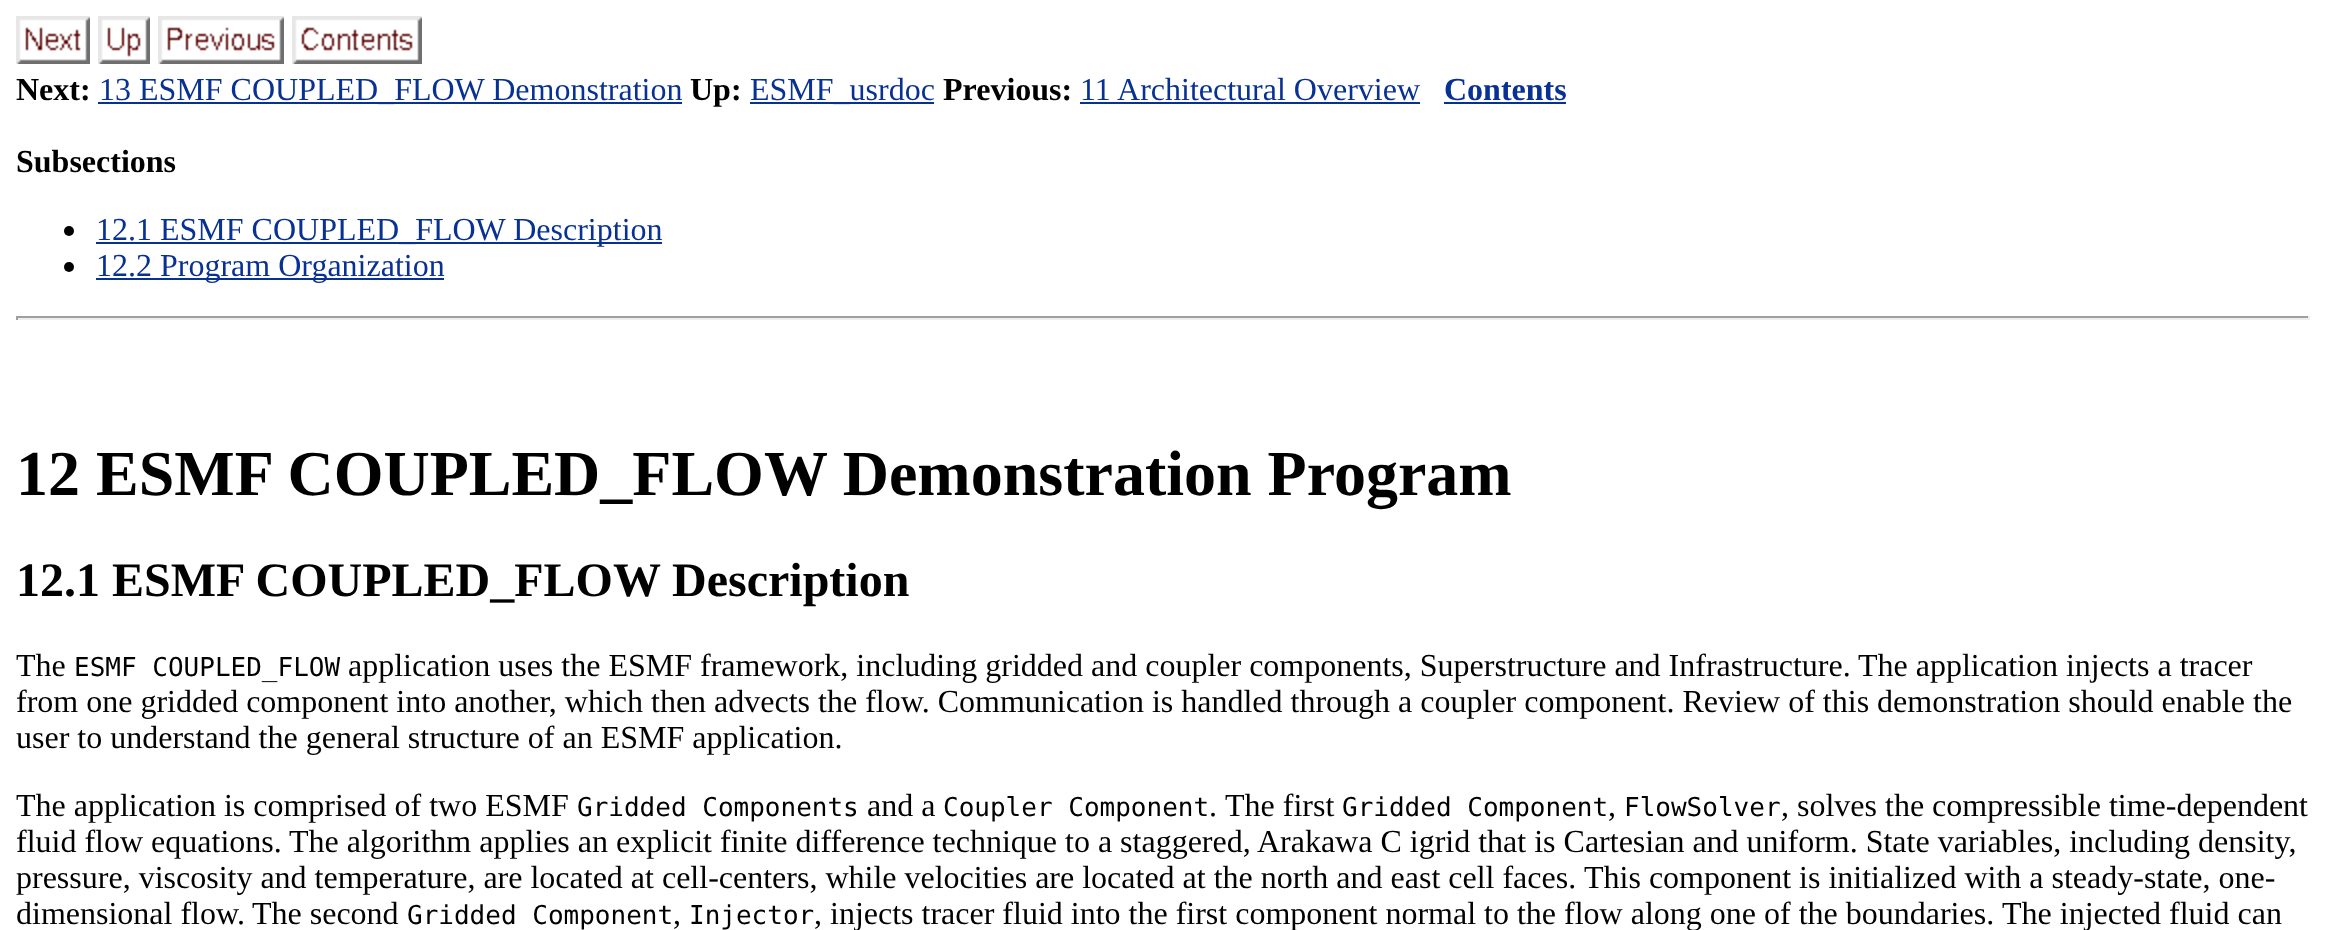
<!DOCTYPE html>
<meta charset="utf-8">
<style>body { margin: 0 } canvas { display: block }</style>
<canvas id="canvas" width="2326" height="930"></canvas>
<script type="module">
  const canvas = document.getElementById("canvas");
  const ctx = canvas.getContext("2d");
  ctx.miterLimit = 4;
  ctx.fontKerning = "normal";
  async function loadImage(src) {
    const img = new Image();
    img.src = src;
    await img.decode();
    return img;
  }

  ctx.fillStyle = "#ffffff";
  ctx.fillRect(0, 0, 2326, 930);
  ctx.drawImage(await loadImage("img1.png"), 16, 16, 74, 48);
  ctx.drawImage(await loadImage("img2.png"), 98, 16, 52, 48);
  ctx.drawImage(await loadImage("img3.png"), 158, 16, 126, 48);
  ctx.drawImage(await loadImage("img4.png"), 292, 16, 130, 48);
  ctx.font = "bold 32px Liberation Serif";
  ctx.fillStyle = "#000000";
  ctx.fillText("Next:", 16, 100);
  ctx.fillStyle = "#083194";
  ctx.fillRect(98, 102, 584, 2);
  ctx.font = "32px Liberation Serif";
  ctx.fillText("13 ESMF COUPLED_FLOW Demonstration", 99, 100);
  ctx.font = "bold 32px Liberation Serif";
  ctx.fillStyle = "#000000";
  ctx.fillText("Up:", 690, 100);
  ctx.fillStyle = "#083194";
  ctx.fillRect(750, 102, 184, 2);
  ctx.font = "32px Liberation Serif";
  ctx.fillText("ESMF_usrdoc", 750, 100);
  ctx.font = "bold 32px Liberation Serif";
  ctx.fillStyle = "#000000";
  ctx.fillText("Previous:", 943, 100);
  ctx.font = "32px Liberation Serif";
  ctx.fillStyle = "#083194";
  ctx.fillText("11 Architectural Overview", 1080, 100);
  ctx.fillRect(1080, 102, 340, 2);
  ctx.font = "bold 32px Liberation Serif";
  ctx.fillText("Contents", 1444, 100);
  ctx.fillRect(1444, 102, 122, 2);
  ctx.fillStyle = "#000000";
  ctx.fillText("Subsections", 16, 172);
  ctx.beginPath();
  ctx.arc(69, 231, 5, 0, Math.PI * 2);
  ctx.fill();
  ctx.fillStyle = "#083194";
  ctx.fillRect(96, 242, 566, 2);
  ctx.font = "32px Liberation Serif";
  ctx.fillText("12.1 ESMF COUPLED_FLOW Description", 96, 240);
  ctx.fillStyle = "#000000";
  ctx.beginPath();
  ctx.arc(69, 267, 5, 0, Math.PI * 2);
  ctx.fill();
  ctx.fillStyle = "#083194";
  ctx.fillRect(96, 278, 348, 2);
  ctx.fillText("12.2 Program Organization", 96, 276);
  ctx.fillStyle = "#9f9f9f";
  ctx.fillRect(16, 316, 2294, 2);
  ctx.fillStyle = "#eeeeee";
  ctx.fillRect(2308, 316, 2, 4);
  ctx.fillRect(16, 318, 2294, 2);
  ctx.fillStyle = "#9f9f9f";
  ctx.fillRect(16, 316, 2, 4);
  ctx.font = "bold 64px Liberation Serif";
  ctx.fillStyle = "#000000";
  ctx.fillText("12 ESMF COUPLED_FLOW Demonstration Program", 16, 495);
  ctx.font = "bold 48px Liberation Serif";
  ctx.fillText("12.1 ESMF COUPLED_FLOW Description", 16, 596);
  ctx.font = "32px Liberation Serif";
  ctx.fillText("The", 16, 676);
  ctx.font = "26px DejaVu Sans Mono";
  ctx.fillText("ESMF COUPLED_FLOW", 74, 676);
  ctx.font = "32px Liberation Serif";
  ctx.fillText("application uses the ESMF framework, including gridded and coupler components, Superstructure and Infrastructure.", 348, 676);
  ctx.fillText("The application injects a tracer", 1858, 676);
  ctx.fillText("from one gridded component into another, which then advects the flow. Communication is handled through a coupler component. Review of this demonstration should enable the", 16, 712);
  ctx.fillText("user to understand the general structure of an ESMF application.", 16, 748);
  ctx.fillText("The application is comprised of two ESMF", 16, 816);
  ctx.font = "26px DejaVu Sans Mono";
  ctx.fillText("Gridded Components", 577, 816);
  ctx.font = "32px Liberation Serif";
  ctx.fillText("and a", 867, 816);
  ctx.font = "26px DejaVu Sans Mono";
  ctx.fillText("Coupler Component", 943, 816);
  ctx.font = "32px Liberation Serif";
  ctx.fillText(".", 1209, 816);
  ctx.fillText("The first", 1225, 816);
  ctx.font = "26px DejaVu Sans Mono";
  ctx.fillText("Gridded Component", 1342, 816);
  ctx.font = "32px Liberation Serif";
  ctx.fillText(",", 1608, 816);
  ctx.font = "26px DejaVu Sans Mono";
  ctx.fillText("FlowSolver", 1624, 816);
  ctx.font = "32px Liberation Serif";
  ctx.fillText(", solves the compressible time-dependent", 1781, 816);
  ctx.fillText("fluid flow equations.", 16, 852);
  ctx.fillText("The algorithm applies an explicit finite difference technique to a staggered, Arakawa C igrid that is Cartesian and uniform. State variables, including density,", 289, 852);
  ctx.fillText("pressure, viscosity and temperature, are located at cell-centers, while velocities are located at the north and east cell faces.", 16, 888);
  ctx.fillText("This component is initialized with a steady-state, one-", 1584, 888);
  ctx.fillText("dimensional flow.", 16, 924);
  ctx.fillText("The second", 252, 924);
  ctx.font = "26px DejaVu Sans Mono";
  ctx.fillText("Gridded Component", 407, 924);
  ctx.font = "32px Liberation Serif";
  ctx.fillText(",", 673, 924);
  ctx.font = "26px DejaVu Sans Mono";
  ctx.fillText("Injector", 689, 924);
  ctx.font = "32px Liberation Serif";
  ctx.fillText(", injects tracer fluid into the first component normal to the flow along one of the boundaries.", 814, 924);
  ctx.fillText("The injected fluid can", 2002, 924);
</script>
